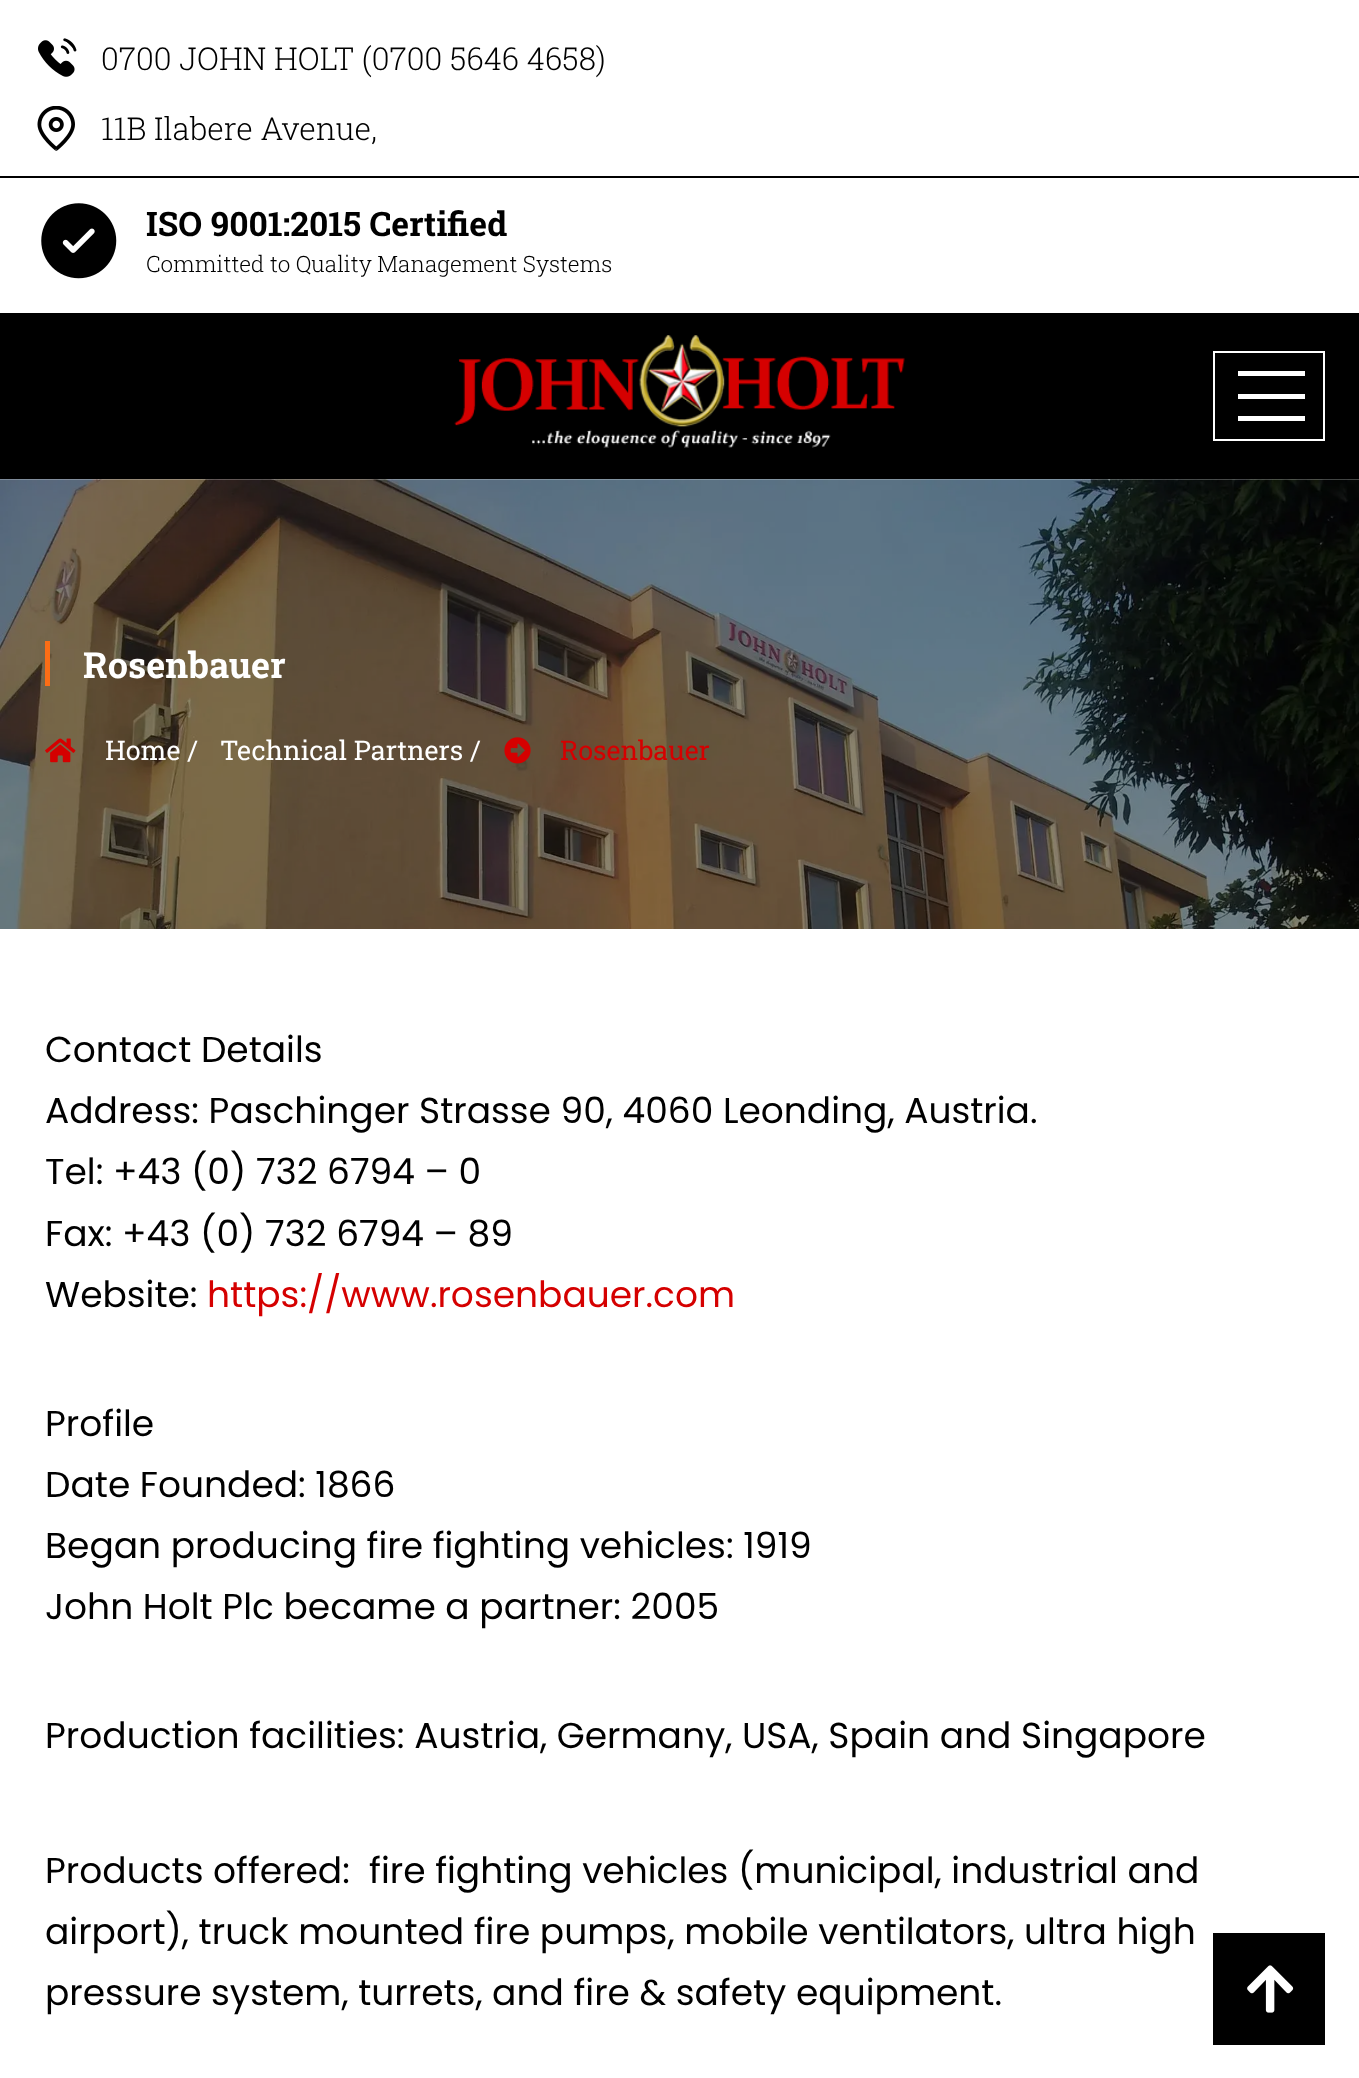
<!DOCTYPE html>
<meta charset="utf-8">
<style>body { margin: 0 } canvas { display: block }</style>
<canvas id="canvas" width="1359" height="2078"></canvas>
<script type="module">
  const canvas = document.getElementById("canvas");
  const ctx = canvas.getContext("2d");
  ctx.miterLimit = 4;
  ctx.fontKerning = "normal";
  async function loadImage(src) {
    const img = new Image();
    img.src = src;
    await img.decode();
    return img;
  }

  ctx.fillStyle = "#ffffff";
  ctx.fillRect(0, 0, 1359, 2078);
  ctx.fillStyle = "#000000";
  ctx.fillRect(0, 313, 1359, 166);
  ctx.drawImage(await loadImage("img1.png"), 38, 38, 39, 39);
  ctx.font = "300 31.5px Roboto Slab";
  ctx.fillText("0700 JOHN HOLT (0700 5646 4658)", 101, 70);
  ctx.drawImage(await loadImage("img2.png"), 37, 106, 38, 45);
  ctx.fillText("11B Ilabere Avenue,", 101, 140);
  ctx.fillRect(0, 176, 1359, 2);
  ctx.drawImage(await loadImage("img3.png"), 41, 203, 76, 76);
  ctx.font = "bold 33.75px Roboto Slab";
  ctx.fillText("ISO 9001:2015 Certified", 146, 236);
  ctx.font = "300 22.5px Roboto Slab";
  ctx.fillText("Committed to Quality Management Systems", 146, 272);
  ctx.drawImage(await loadImage("img4.png"), 454, 335, 451, 113);
  ctx.strokeStyle = "#ffffff";
  ctx.lineWidth = 2;
  ctx.strokeRect(1214, 352, 110, 88);
  ctx.fillStyle = "#ffffff";
  ctx.fillRect(1238, 371, 67, 5);
  ctx.fillRect(1238, 394, 67, 5);
  ctx.fillRect(1238, 416, 67, 5);
  ctx.drawImage(await loadImage("img5.png"), 0, 479, 1359, 450);
  ctx.fillStyle = "#fb6d16";
  ctx.fillRect(45, 641, 5, 45);
  ctx.font = "bold 36px Roboto Slab";
  ctx.fillStyle = "#ffffff";
  ctx.fillText("Rosenbauer", 83, 678);
  ctx.drawImage(await loadImage("img6.png"), 45, 738, 31, 25);
  ctx.font = "27px Roboto Slab";
  ctx.fillText("Home /", 105, 760);
  ctx.fillText("Technical Partners /", 220, 760);
  ctx.drawImage(await loadImage("img7.png"), 504, 737, 27, 27);
  ctx.fillStyle = "#d50000";
  ctx.fillText("Rosenbauer", 560, 760);
  ctx.font = "36px Poppins";
  ctx.fillStyle = "#000000";
  ctx.fillText("Contact Details", 45, 1062);
  ctx.fillText("Address: Paschinger Strasse 90, 4060 Leonding, Austria.", 45, 1123);
  ctx.fillText("Tel: +43 (0) 732 6794 – 0", 45, 1184);
  ctx.fillText("Fax: +43 (0) 732 6794 – 89", 45, 1246);
  ctx.fillText("Website:", 45, 1307);
  ctx.fillStyle = "#d50000";
  ctx.fillText("https://www.rosenbauer.com", 207, 1307);
  ctx.fillStyle = "#000000";
  ctx.fillText("Profile", 45, 1436);
  ctx.fillText("Date Founded: 1866", 45, 1497);
  ctx.fillText("Began producing fire fighting vehicles: 1919", 45, 1558);
  ctx.fillText("John Holt Plc became a partner: 2005", 45, 1619);
  ctx.fillText("Production facilities: Austria, Germany, USA, Spain and Singapore", 45, 1748);
  ctx.fillText("Products offered:  fire fighting vehicles (municipal, industrial and", 45, 1883);
  ctx.fillText("airport), truck mounted fire pumps, mobile ventilators, ultra high", 45, 1944);
  ctx.fillText("pressure system, turrets, and fire & safety equipment.", 45, 2005);
  ctx.fillRect(1213, 1933, 112, 112);
  ctx.drawImage(await loadImage("img8.png"), 1247, 1965, 47, 48);
</script>
